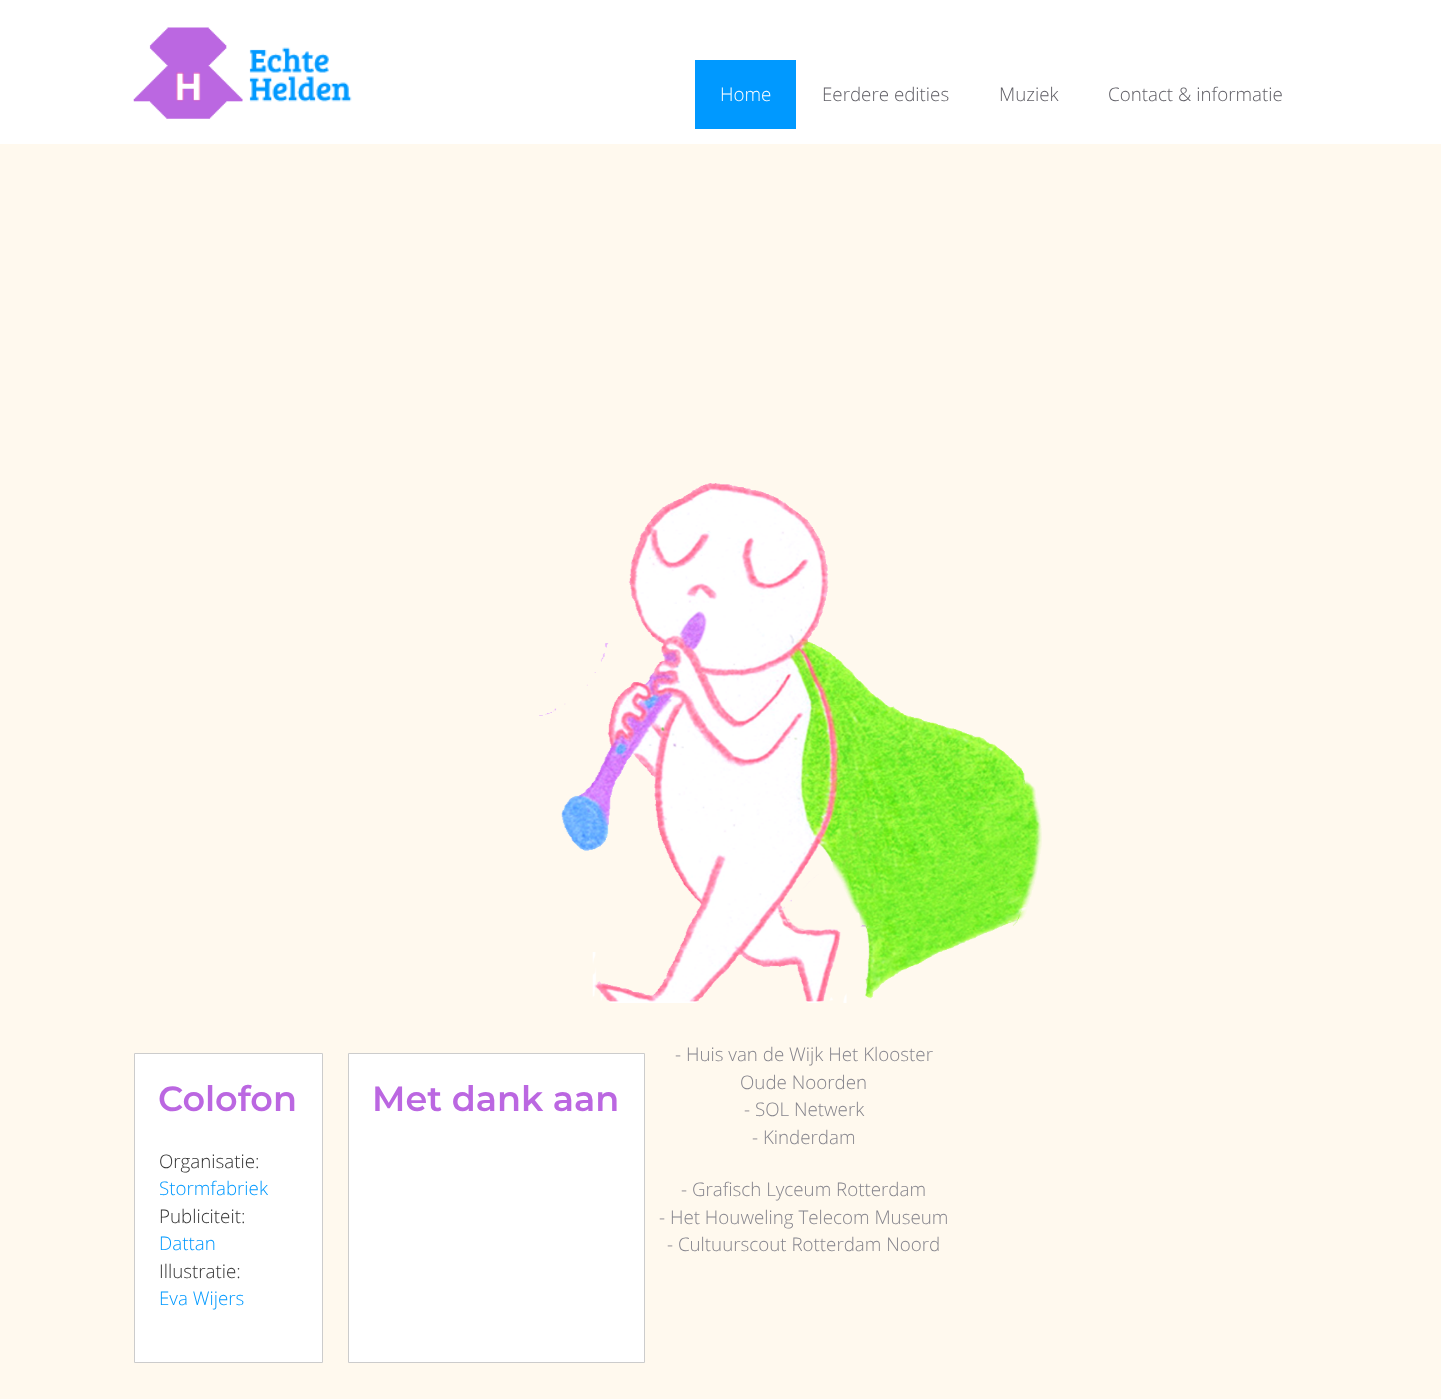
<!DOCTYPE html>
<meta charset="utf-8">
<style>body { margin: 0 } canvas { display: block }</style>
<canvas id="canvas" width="1441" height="1399"></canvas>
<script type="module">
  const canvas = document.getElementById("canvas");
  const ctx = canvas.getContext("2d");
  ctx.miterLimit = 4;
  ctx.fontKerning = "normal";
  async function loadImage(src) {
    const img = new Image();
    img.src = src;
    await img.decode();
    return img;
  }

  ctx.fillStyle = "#fff9ee";
  ctx.fillRect(0, 0, 1441, 1399);
  ctx.fillStyle = "#ffffff";
  ctx.fillRect(0, 0, 1441, 144);
  ctx.drawImage(await loadImage("img1.png"), 133, 27, 219, 92);
  ctx.fillStyle = "#0099ff";
  ctx.fillRect(695, 60, 101, 69);
  ctx.font = "300 18.75px Open Sans";
  ctx.fillStyle = "#ffffff";
  ctx.fillText("Home", 720, 101);
  ctx.fillStyle = "#605f66";
  ctx.fillText("Eerdere edities", 822, 101);
  ctx.fillText("Muziek", 999, 101);
  ctx.fillText("Contact & informatie", 1108, 101);
  ctx.drawImage(await loadImage("img2.png"), 539, 483, 503, 520);
  ctx.fillStyle = "#ffffff";
  ctx.beginPath();
  ctx.rect(134.5, 1053.5, 188, 309);
  ctx.fill();
  ctx.strokeStyle = "#cccccc";
  ctx.stroke();
  ctx.font = "600 35px Montserrat";
  ctx.fillStyle = "#bb67e1";
  ctx.fillText("Colofon", 158, 1111);
  ctx.font = "300 18.75px Open Sans";
  ctx.fillStyle = "#333333";
  ctx.fillText("Organisatie:", 159, 1168);
  ctx.fillStyle = "#0099ff";
  ctx.fillText("Stormfabriek", 159, 1195);
  ctx.fillStyle = "#333333";
  ctx.fillText("Publiciteit:", 159, 1223);
  ctx.fillStyle = "#0099ff";
  ctx.fillText("Dattan", 159, 1250);
  ctx.fillStyle = "#333333";
  ctx.fillText("Illustratie:", 159, 1278);
  ctx.fillStyle = "#0099ff";
  ctx.fillText("Eva Wijers", 159, 1305);
  ctx.fillStyle = "#ffffff";
  ctx.beginPath();
  ctx.rect(348.5, 1053.5, 296, 309);
  ctx.fill();
  ctx.stroke();
  ctx.font = "600 35px Montserrat";
  ctx.fillStyle = "#bb67e1";
  ctx.fillText("Met dank aan", 372, 1111);
  ctx.font = "300 18.75px Open Sans";
  ctx.fillStyle = "#86858d";
  ctx.fillText("- Huis van de Wijk Het Klooster", 675, 1061);
  ctx.fillText("Oude Noorden", 740, 1089);
  ctx.fillText("- SOL Netwerk", 744, 1116);
  ctx.fillText("- Kinderdam", 752, 1144);
  ctx.fillText("- Grafisch Lyceum Rotterdam", 681, 1196);
  ctx.fillText("- Het Houweling Telecom Museum", 659, 1224);
  ctx.fillText("- Cultuurscout Rotterdam Noord", 667, 1251);
</script>
